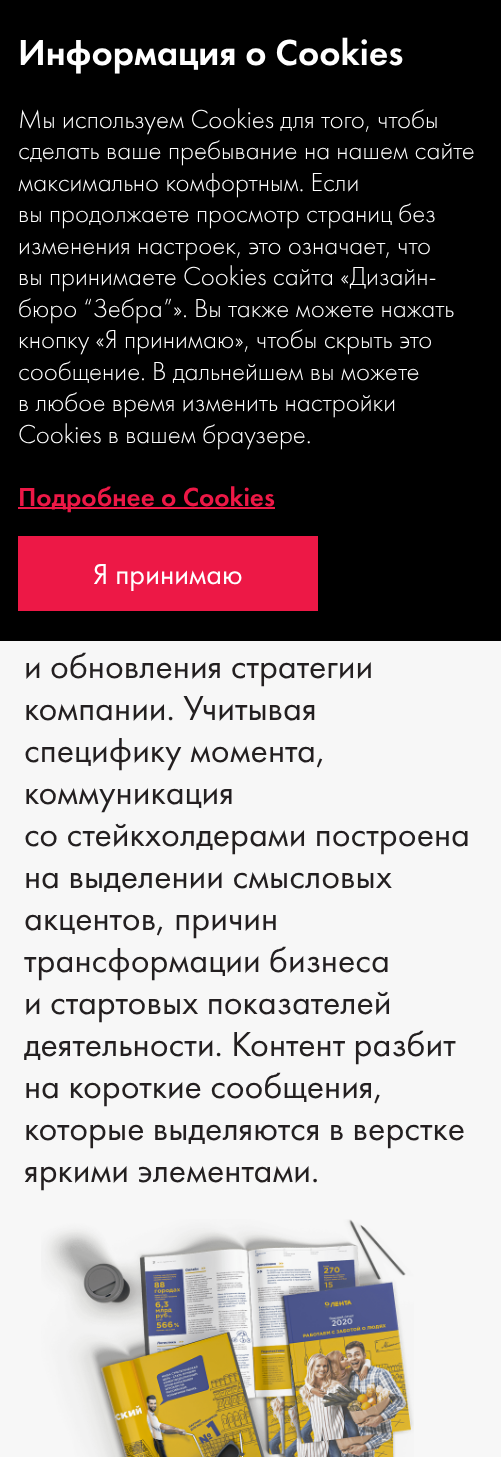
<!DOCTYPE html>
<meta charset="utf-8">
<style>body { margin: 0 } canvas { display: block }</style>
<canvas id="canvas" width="501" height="1457"></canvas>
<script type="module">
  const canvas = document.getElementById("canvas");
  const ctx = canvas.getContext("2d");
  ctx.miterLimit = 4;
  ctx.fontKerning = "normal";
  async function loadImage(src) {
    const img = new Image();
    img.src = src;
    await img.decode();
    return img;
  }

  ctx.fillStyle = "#f7f7f7";
  ctx.fillRect(0, 0, 501, 1457);
  ctx.fillStyle = "#000000";
  ctx.fillRect(0, 0, 501, 641);
  ctx.font = "500 37.5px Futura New";
  ctx.fillStyle = "#ffffff";
  ctx.fillText("Информация о Cookies", 18, 65);
  ctx.font = "300 27px Futura New";
  ctx.fillText("Мы используем Cookies для того, чтобы", 18, 128);
  ctx.fillText("сделать ваше пребывание на нашем сайте", 18, 159);
  ctx.fillText("максимально комфортным. Если", 18, 191);
  ctx.fillText("вы продолжаете просмотр страниц без", 18, 222);
  ctx.fillText("изменения настроек, это означает, что", 18, 254);
  ctx.fillText("вы принимаете Cookies сайта «Дизайн-", 18, 285);
  ctx.fillText("бюро “Зебра”». Вы также можете нажать", 18, 317);
  ctx.fillText("кнопку «Я принимаю», чтобы скрыть это", 18, 348);
  ctx.fillText("сообщение. В дальнейшем вы можете", 18, 380);
  ctx.fillText("в любое время изменить настройки", 18, 411);
  ctx.fillText("Cookies в вашем браузере.", 18, 443);
  ctx.fillStyle = "#ed1846";
  ctx.fillRect(18, 507, 257, 2);
  ctx.font = "500 27px Futura New";
  ctx.fillText("Подробнее о Cookies", 18, 506);
  ctx.fillRect(18, 536, 300, 75);
  ctx.font = "30px Futura New";
  ctx.fillStyle = "#ffffff";
  ctx.fillText("Я принимаю", 93, 584);
  ctx.font = "36px Futura New";
  ctx.fillStyle = "#231f20";
  ctx.fillText("и обновления стратегии", 24, 678);
  ctx.fillText("компании. Учитывая", 24, 720);
  ctx.fillText("специфику момента,", 24, 762);
  ctx.fillText("коммуникация", 24, 804);
  ctx.fillText("со стейкхолдерами построена", 24, 846);
  ctx.fillText("на выделении смысловых", 24, 888);
  ctx.fillText("акцентов, причин", 24, 930);
  ctx.fillText("трансформации бизнеса", 24, 972);
  ctx.fillText("и стартовых показателей", 24, 1014);
  ctx.fillText("деятельности. Контент разбит", 24, 1056);
  ctx.fillText("на короткие сообщения,", 24, 1098);
  ctx.fillText("которые выделяются в верстке", 24, 1140);
  ctx.fillText("яркими элементами.", 24, 1182);
  ctx.drawImage(await loadImage("img1.png"), 41, 1219, 373, 238);
</script>
